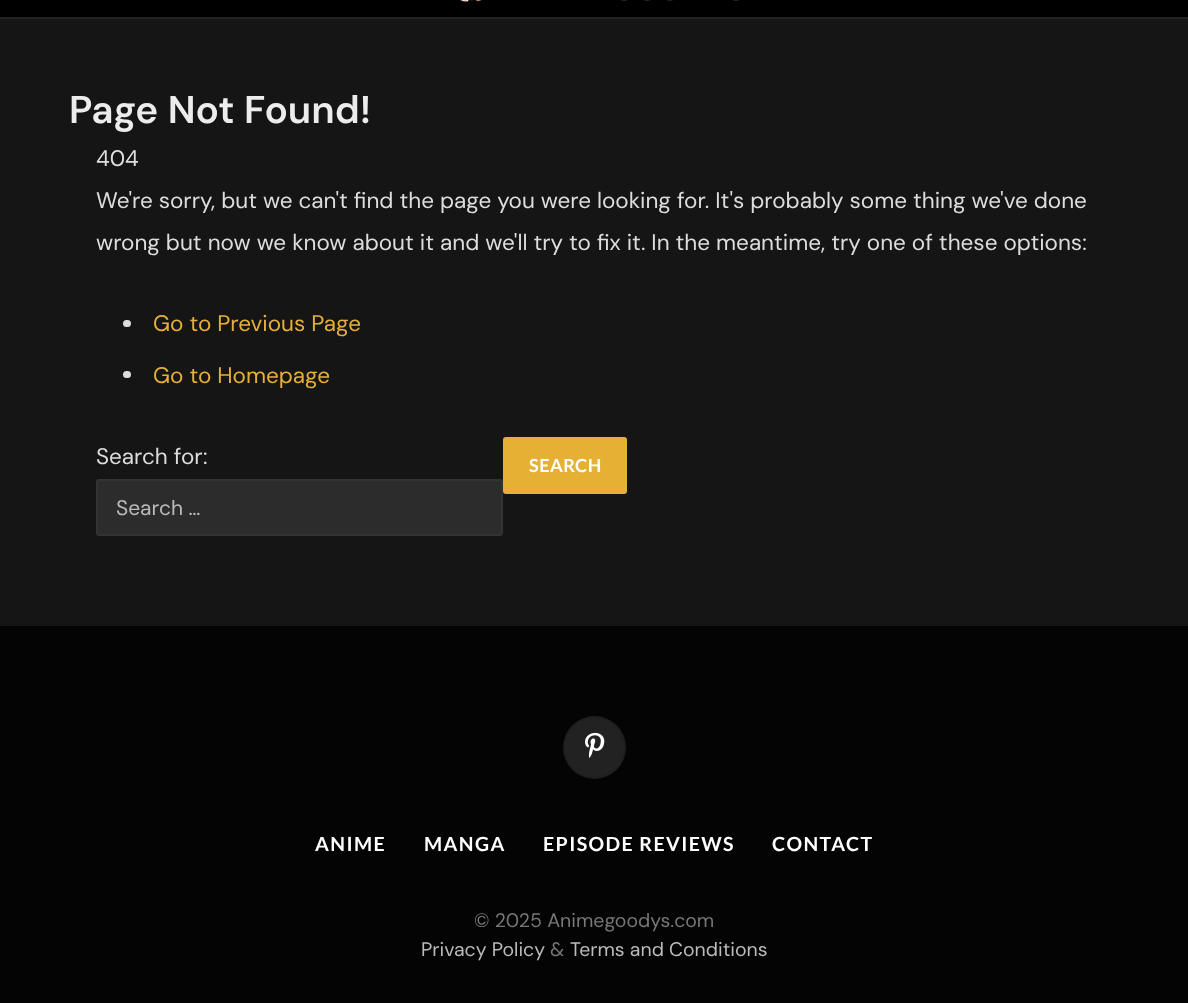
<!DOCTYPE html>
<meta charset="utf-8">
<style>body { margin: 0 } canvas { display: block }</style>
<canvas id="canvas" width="1188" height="1003"></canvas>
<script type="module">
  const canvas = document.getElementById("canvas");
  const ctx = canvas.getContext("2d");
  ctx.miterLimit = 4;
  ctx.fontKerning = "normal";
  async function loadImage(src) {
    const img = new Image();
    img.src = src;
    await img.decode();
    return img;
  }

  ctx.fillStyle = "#151516";
  ctx.fillRect(0, 0, 1188, 1003);
  ctx.fillStyle = "#000000";
  ctx.fillRect(0, 0, 1188, 17);
  ctx.fillStyle = "#222222";
  ctx.fillRect(0, 17, 1188, 2);
  ctx.drawImage(await loadImage("img1.png"), 460, 0, 279, 2);
  ctx.font = "600 38.75px DM Sans";
  ctx.fillStyle = "#ececec";
  ctx.fillText("Page Not Found!", 69, 123);
  ctx.font = "22.5px DM Sans";
  ctx.fillStyle = "#dddddd";
  ctx.fillText("404", 96, 166);
  ctx.fillText("We're sorry, but we can't find the page you were looking for. It's probably some thing we've done", 96, 208);
  ctx.fillText("wrong but now we know about it and we'll try to fix it. In the meantime, try one of these options:", 96, 250);
  ctx.beginPath();
  ctx.roundRect(123, 320, 8, 7, 3.5);
  ctx.fill();
  ctx.fillStyle = "#e5b034";
  ctx.fillText("Go to Previous Page", 153, 331);
  ctx.fillStyle = "#dddddd";
  ctx.beginPath();
  ctx.roundRect(123, 371, 8, 7, 3.5);
  ctx.fill();
  ctx.fillStyle = "#e5b034";
  ctx.fillText("Go to Homepage", 153, 383);
  ctx.fillStyle = "#dddddd";
  ctx.fillText("Search for:", 96, 464);
  ctx.fillStyle = "#2c2c2d";
  ctx.beginPath();
  ctx.roundRect(97, 480, 405, 55, 2);
  ctx.fill();
  ctx.strokeStyle = "#333333";
  ctx.lineWidth = 2;
  ctx.stroke();
  ctx.font = "21px DM Sans";
  ctx.fillStyle = "#bbbbbb";
  ctx.fillText("Search …", 116, 515);
  ctx.fillStyle = "#e5b034";
  ctx.beginPath();
  ctx.roundRect(503, 437, 124, 57, 3);
  ctx.fill();
  ctx.letterSpacing = "0.5px";
  ctx.font = "bold 18px Lato";
  ctx.fillStyle = "#ffffff";
  ctx.fillText("SEARCH", 529, 472);
  ctx.fillStyle = "#040404";
  ctx.fillRect(0, 626, 1188, 377);
  ctx.fillStyle = "#222222";
  ctx.beginPath();
  ctx.arc(594.5, 747.5, 31.5, 0, Math.PI * 2);
  ctx.fill();
  ctx.beginPath();
  ctx.arc(594.5, 747.5, 30.5, 0, Math.PI * 2);
  ctx.strokeStyle = "rgba(0, 0, 0, 0.09)";
  ctx.stroke();
  ctx.drawImage(await loadImage("img2.png"), 585, 732, 20, 26);
  ctx.letterSpacing = "1.4px";
  ctx.font = "bold 19.5px Lato";
  ctx.fillStyle = "#ffffff";
  ctx.fillText("ANIME", 315, 851);
  ctx.fillText("MANGA", 424, 851);
  ctx.fillText("EPISODE REVIEWS", 543, 851);
  ctx.fillText("CONTACT", 772, 851);
  ctx.letterSpacing = "0px";
  ctx.font = "19.5px DM Sans";
  ctx.fillStyle = "#777777";
  ctx.fillText("© 2025 Animegoodys.com", 474, 927);
  ctx.fillStyle = "#bbbbbb";
  ctx.fillText("Privacy Policy", 421, 956);
  ctx.fillStyle = "#777777";
  ctx.fillText("&", 550, 956);
  ctx.fillStyle = "#bbbbbb";
  ctx.fillText("Terms and Conditions", 570, 956);
</script>
